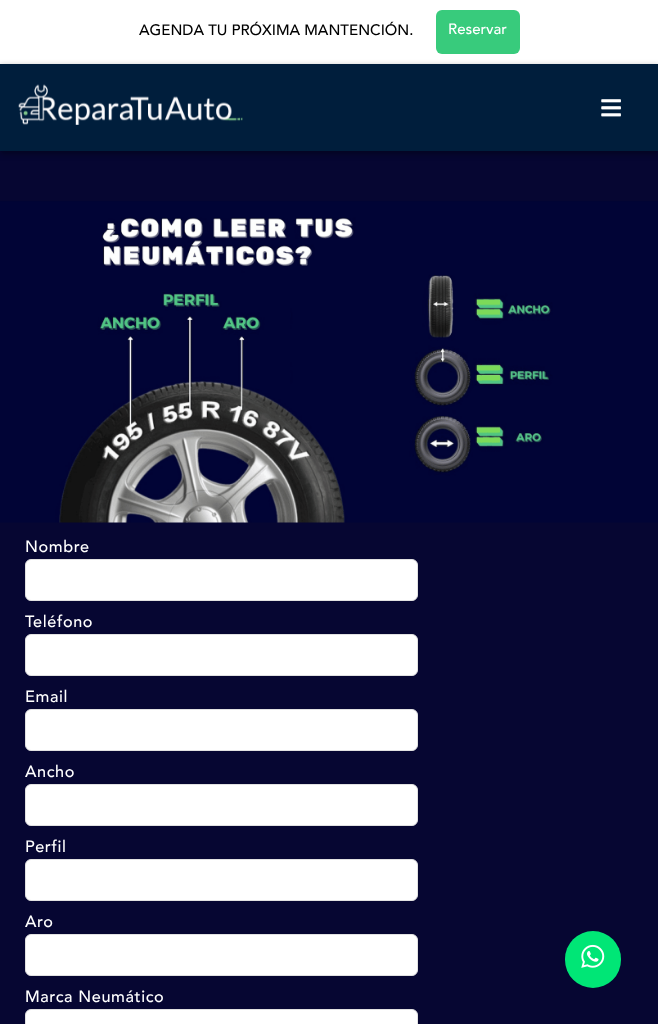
<!DOCTYPE html>
<meta charset="utf-8">
<style>body { margin: 0 } canvas { display: block }</style>
<canvas id="canvas" width="658" height="1024"></canvas>
<script type="module">
  const canvas = document.getElementById("canvas");
  const ctx = canvas.getContext("2d");
  ctx.miterLimit = 4;
  ctx.fontKerning = "normal";
  async function loadImage(src) {
    const img = new Image();
    img.src = src;
    await img.decode();
    return img;
  }

  ctx.fillStyle = "#ffffff";
  ctx.fillRect(0, 0, 658, 1024);
  ctx.font = "500 15px Avenir";
  ctx.fillStyle = "#000000";
  ctx.fillText("AGENDA TU PRÓXIMA MANTENCIÓN.", 139, 35);
  ctx.fillStyle = "#38cb7c";
  ctx.beginPath();
  ctx.roundRect(436, 10, 84, 44, 6);
  ctx.fill();
  ctx.fillStyle = "#ffffff";
  ctx.fillText("Reservar", 448, 34);
  ctx.fillStyle = "#060632";
  ctx.fillRect(0, 151, 658, 873);
  ctx.fillStyle = "rgba(0, 0, 0, 0.35)";
  ctx.filter = "blur(3px)";
  ctx.beginPath();
  ctx.rect(0, 66, 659, 88);
  ctx.fill();
  ctx.filter = "none";
  ctx.fillStyle = "#001e3c";
  ctx.fillRect(0, 64, 658, 87);
  ctx.drawImage(await loadImage("img1.png"), 18, 84, 225, 41);
  ctx.drawImage(await loadImage("img2.png"), 601, 99, 20, 18);
  ctx.drawImage(await loadImage("img3.png"), 0, 201, 658, 322);
  ctx.letterSpacing = "0.6px";
  ctx.font = "500 16.25px Avenir";
  ctx.fillStyle = "#ffffff";
  ctx.fillText("Nombre", 25, 552);
  ctx.beginPath();
  ctx.roundRect(25.5, 559.5, 392, 41, 5.5);
  ctx.fill();
  ctx.strokeStyle = "#e1e1e1";
  ctx.stroke();
  ctx.fillText("Teléfono", 25, 627);
  ctx.beginPath();
  ctx.roundRect(25.5, 634.5, 392, 41, 5.5);
  ctx.fill();
  ctx.stroke();
  ctx.fillText("Email", 25, 702);
  ctx.beginPath();
  ctx.roundRect(25.5, 709.5, 392, 41, 5.5);
  ctx.fill();
  ctx.stroke();
  ctx.fillText("Ancho", 25, 777);
  ctx.beginPath();
  ctx.roundRect(25.5, 784.5, 392, 41, 5.5);
  ctx.fill();
  ctx.stroke();
  ctx.fillText("Perfil", 25, 852);
  ctx.beginPath();
  ctx.roundRect(25.5, 859.5, 392, 41, 5.5);
  ctx.fill();
  ctx.stroke();
  ctx.fillText("Aro", 25, 927);
  ctx.beginPath();
  ctx.roundRect(25.5, 934.5, 392, 41, 5.5);
  ctx.fill();
  ctx.stroke();
  ctx.fillText("Marca Neumático", 25, 1002);
  ctx.beginPath();
  ctx.roundRect(25.5, 1009.5, 392, 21, 5.5);
  ctx.fill();
  ctx.stroke();
  ctx.fillStyle = "#00e676";
  ctx.beginPath();
  ctx.roundRect(565, 931, 56, 57, 28);
  ctx.fill();
  ctx.drawImage(await loadImage("img4.png"), 581, 944, 24, 24);
</script>
